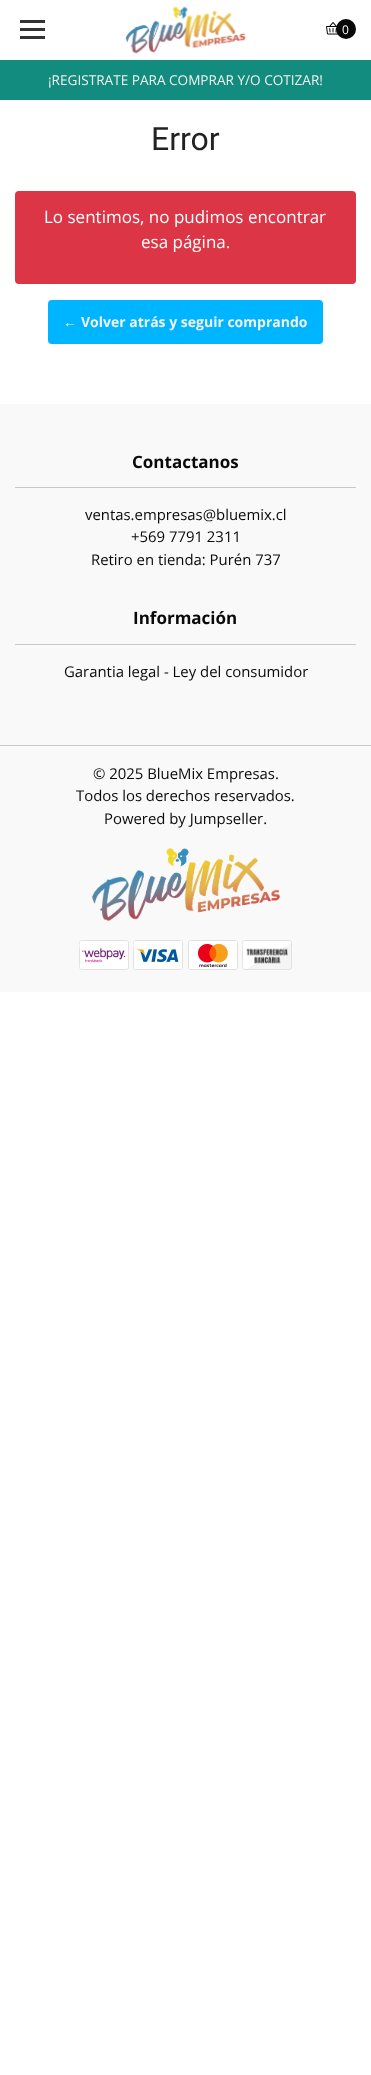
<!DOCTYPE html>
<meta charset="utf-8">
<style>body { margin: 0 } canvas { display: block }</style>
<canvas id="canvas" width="371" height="2075"></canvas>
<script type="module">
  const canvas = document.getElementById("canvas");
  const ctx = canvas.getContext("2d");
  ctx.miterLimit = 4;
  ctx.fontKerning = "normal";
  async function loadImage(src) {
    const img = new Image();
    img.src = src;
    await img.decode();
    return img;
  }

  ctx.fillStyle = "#ffffff";
  ctx.fillRect(0, 0, 371, 2075);
  ctx.fillStyle = "#333333";
  ctx.fillRect(20, 20, 25, 3);
  ctx.fillRect(20, 28, 25, 3);
  ctx.fillRect(20, 36, 25, 3);
  ctx.drawImage(await loadImage("img1.png"), 125, 6, 121, 48);
  ctx.drawImage(await loadImage("img2.png"), 326, 22, 12, 13);
  ctx.fillStyle = "#090909";
  ctx.beginPath();
  ctx.arc(346, 29, 10, 0, Math.PI * 2);
  ctx.fill();
  ctx.font = "12px Open Sans";
  ctx.fillStyle = "#ffffff";
  ctx.fillText("0", 342, 34);
  ctx.fillStyle = "#128c7e";
  ctx.fillRect(0, 60, 371, 40);
  ctx.font = "13.6px Open Sans";
  ctx.fillStyle = "#f1f1f1";
  ctx.fillText("¡REGISTRATE PARA COMPRAR Y/O COTIZAR!", 48, 85);
  ctx.font = "32px Roboto";
  ctx.fillStyle = "#222222";
  ctx.fillText("Error", 151, 150);
  ctx.fillStyle = "#dc3545";
  ctx.beginPath();
  ctx.roundRect(15, 191, 341, 93, 4);
  ctx.fill();
  ctx.font = "17px Open Sans";
  ctx.fillStyle = "#ffffff";
  ctx.fillText("Lo sentimos, no pudimos encontrar", 44, 223);
  ctx.fillText("esa página.", 141, 248);
  ctx.fillStyle = "#00b5ff";
  ctx.beginPath();
  ctx.roundRect(48, 300, 275, 44, 4);
  ctx.fill();
  ctx.font = "bold 14px Liberation Serif";
  ctx.fillStyle = "#f1f1f1";
  ctx.fillText("←", 63, 327);
  ctx.font = "bold 14px Open Sans";
  ctx.fillText("Volver atrás y seguir comprando", 81, 327);
  ctx.fillStyle = "#f9f9f9";
  ctx.fillRect(0, 404, 371, 588);
  ctx.fillStyle = "#c9c9c9";
  ctx.fillRect(15, 487, 341, 1);
  ctx.font = "bold 17px Open Sans";
  ctx.fillStyle = "#090909";
  ctx.fillText("Contactanos", 132, 468);
  ctx.font = "14.9px Open Sans";
  ctx.fillText("ventas.empresas@bluemix.cl", 85, 520);
  ctx.fillText("+569 7791 2311", 131, 542);
  ctx.fillText("Retiro en tienda: Purén 737", 91, 565);
  ctx.fillStyle = "#c9c9c9";
  ctx.fillRect(15, 644, 341, 1);
  ctx.font = "bold 17px Open Sans";
  ctx.fillStyle = "#090909";
  ctx.fillText("Información", 133, 624);
  ctx.font = "14.9px Open Sans";
  ctx.fillText("Garantia legal - Ley del consumidor", 64, 677);
  ctx.fillStyle = "#c9c9c9";
  ctx.fillRect(0, 745, 371, 1);
  ctx.fillStyle = "#090909";
  ctx.fillText("© 2025 BlueMix Empresas.", 93, 779);
  ctx.fillText("Todos los derechos reservados.", 76, 801);
  ctx.fillText("Powered by Jumpseller.", 104, 824);
  ctx.drawImage(await loadImage("img3.png"), 92, 848, 188, 73);
  ctx.beginPath();
  ctx.roundRect(79.5, 940.5, 49, 29, 2.5);
  ctx.strokeStyle = "#e1e1e1";
  ctx.stroke();
  ctx.fillStyle = "#ffffff";
  ctx.beginPath();
  ctx.moveTo(82, 941);
  ctx.lineTo(126, 941);
  ctx.bezierCurveTo(127, 941, 128, 942, 128, 943);
  ctx.lineTo(128, 945);
  ctx.lineTo(86, 969);
  ctx.bezierCurveTo(78, 969, 80, 968, 80, 959);
  ctx.lineTo(80, 951);
  ctx.bezierCurveTo(80, 949, 78, 941, 82, 941);
  ctx.closePath();
  ctx.fill();
  ctx.drawImage(await loadImage("img4.png"), 80, 941, 48, 28);
  ctx.beginPath();
  ctx.roundRect(133.5, 940.5, 49, 29, 2.5);
  ctx.stroke();
  ctx.beginPath();
  ctx.moveTo(136, 941);
  ctx.lineTo(180, 941);
  ctx.bezierCurveTo(181, 941, 182, 942, 182, 943);
  ctx.lineTo(182, 945);
  ctx.lineTo(140, 969);
  ctx.bezierCurveTo(134, 969, 134, 970, 134, 963);
  ctx.lineTo(134, 951);
  ctx.bezierCurveTo(134, 949, 132, 941, 136, 941);
  ctx.closePath();
  ctx.fill();
  ctx.drawImage(await loadImage("img5.png"), 134, 941, 48, 28);
  ctx.beginPath();
  ctx.roundRect(188.5, 940.5, 49, 29, 2.5);
  ctx.stroke();
  ctx.drawImage(await loadImage("img6.png"), 189, 941, 48, 28);
  ctx.fillStyle = "#f5f5f5";
  ctx.beginPath();
  ctx.roundRect(242.5, 940.5, 49, 29, 2.5);
  ctx.fill();
  ctx.stroke();
  ctx.fillStyle = "#ffffff";
  ctx.beginPath();
  ctx.moveTo(245, 941);
  ctx.lineTo(289, 941);
  ctx.bezierCurveTo(290, 941, 291, 942, 291, 943);
  ctx.lineTo(291, 945);
  ctx.lineTo(249, 969);
  ctx.bezierCurveTo(241, 969, 243, 968, 243, 959);
  ctx.lineTo(243, 951);
  ctx.bezierCurveTo(243, 949, 241, 941, 245, 941);
  ctx.closePath();
  ctx.fill();
  ctx.save();
  ctx.beginPath();
  ctx.roundRect(243, 941, 48, 28, 2);
  ctx.clip();
  ctx.beginPath();
  ctx.moveTo(261, 847);
  ctx.lineTo(310.5, 933);
  ctx.lineTo(225, 982.5);
  ctx.lineTo(175.5, 896.5);
  ctx.closePath();
  ctx.strokeStyle = "#eeeeee";
  ctx.stroke();
  ctx.restore();
  ctx.drawImage(await loadImage("img7.png"), 246, 948, 43, 16);
</script>
